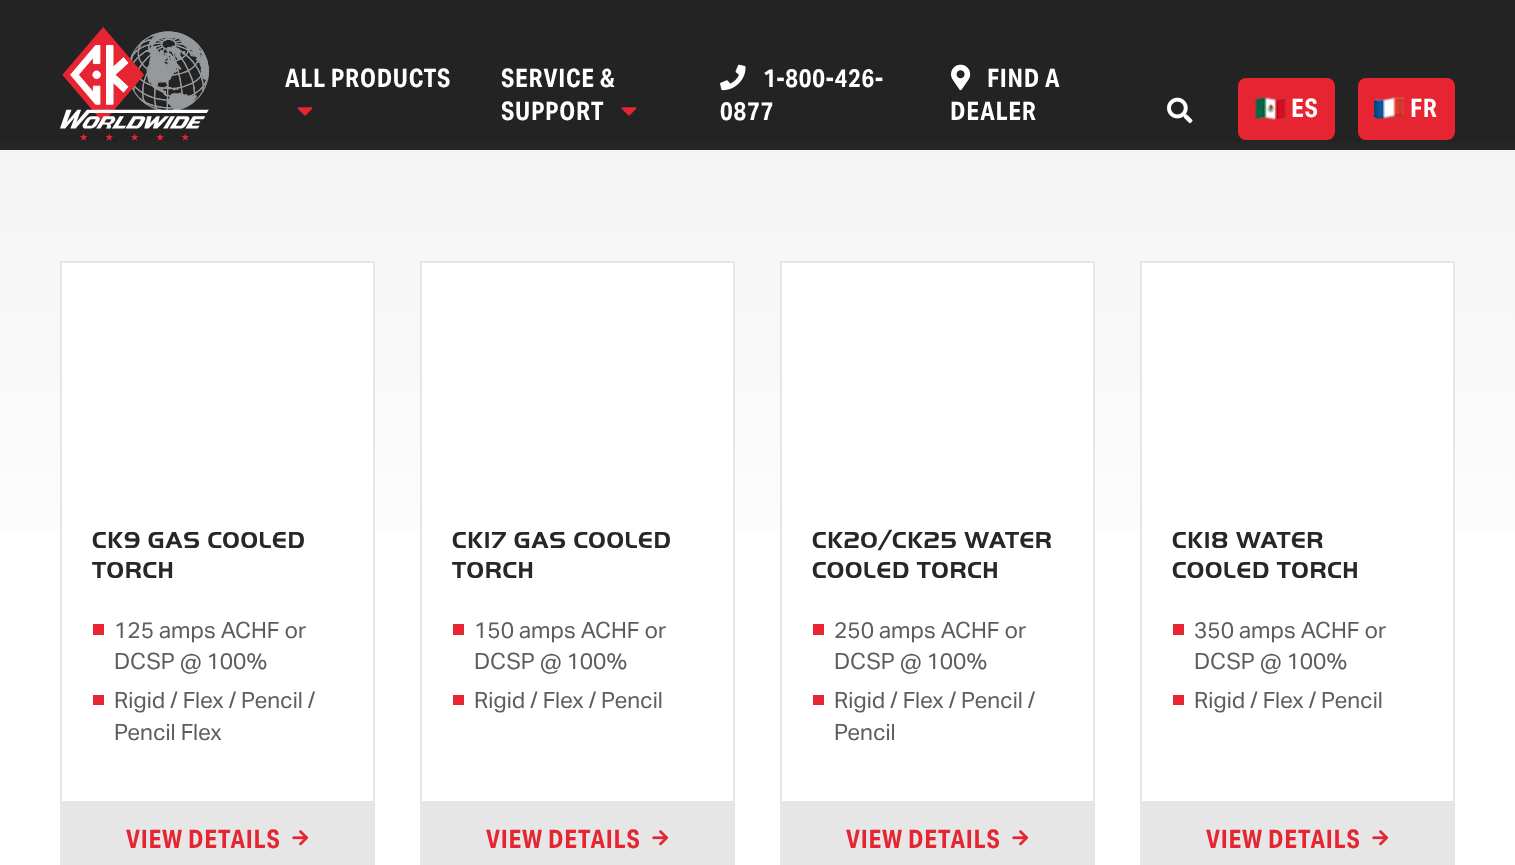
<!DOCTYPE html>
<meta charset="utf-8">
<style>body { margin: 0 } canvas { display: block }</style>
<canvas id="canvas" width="1515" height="865"></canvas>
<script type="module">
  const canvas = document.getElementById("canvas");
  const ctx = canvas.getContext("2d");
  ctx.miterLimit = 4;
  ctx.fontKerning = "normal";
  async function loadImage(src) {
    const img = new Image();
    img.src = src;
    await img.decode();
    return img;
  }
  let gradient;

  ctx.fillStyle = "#ffffff";
  ctx.fillRect(0, 0, 1515, 865);
  ctx.fillStyle = "#232323";
  ctx.fillRect(0, 0, 1515, 141);
  ctx.drawImage(await loadImage("img1.png"), 60, 27, 149, 114);
  ctx.letterSpacing = "0.75px";
  ctx.font = "bold 25.5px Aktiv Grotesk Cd";
  ctx.fillStyle = "#ffffff";
  ctx.fillText("ALL PRODUCTS", 285, 87);
  ctx.drawImage(await loadImage("img2.png"), 297, 107, 16, 9);
  ctx.fillText("SERVICE &", 501, 87);
  ctx.fillText("SUPPORT", 501, 120);
  ctx.drawImage(await loadImage("img3.png"), 621, 107, 16, 9);
  ctx.drawImage(await loadImage("img4.png"), 720, 64, 26, 27);
  ctx.fillText("1-800-426-", 763, 87);
  ctx.fillText("0877", 720, 120);
  ctx.drawImage(await loadImage("img5.png"), 951, 64, 20, 27);
  ctx.fillText("FIND A", 987, 87);
  ctx.fillText("DEALER", 950, 120);
  ctx.drawImage(await loadImage("img6.png"), 1167, 97, 26, 27);
  ctx.fillStyle = "#e72431";
  ctx.beginPath();
  ctx.roundRect(1239.5, 79.5, 94, 59, 6.5);
  ctx.fill();
  ctx.strokeStyle = "#e72431";
  ctx.lineWidth = 3;
  ctx.stroke();
  ctx.drawImage(await loadImage("img7.png"), 1255, 97, 31, 23);
  ctx.fillStyle = "#ffffff";
  ctx.fillText("ES", 1291, 117);
  ctx.fillStyle = "#e72431";
  ctx.beginPath();
  ctx.roundRect(1359.5, 79.5, 94, 59, 6.5);
  ctx.fill();
  ctx.stroke();
  ctx.drawImage(await loadImage("img8.png"), 1374, 97, 30, 22);
  ctx.fillStyle = "#ffffff";
  ctx.fillText("FR", 1410, 117);
  gradient = ctx.createLinearGradient(758, 141, 758, 650);
  gradient.addColorStop(0, "#f4f4f4");
  gradient.addColorStop(1, "#ffffff");
  ctx.fillStyle = gradient;
  ctx.fillRect(0, 150, 1515, 384);
  gradient = ctx.createLinearGradient(758, 141, 758, 650);
  gradient.addColorStop(0, "#252525");
  gradient.addColorStop(1, "#252525");
  ctx.fillStyle = gradient;
  ctx.fillRect(0, 141, 1515, 9);
  ctx.fillStyle = "#ffffff";
  ctx.fillRect(62, 263, 311, 271);
  ctx.strokeStyle = "#e6e6e6";
  ctx.lineWidth = 2;
  ctx.strokeRect(61, 262, 313, 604);
  ctx.font = "bold 24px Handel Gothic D";
  ctx.fillStyle = "#272727";
  ctx.fillText("CK9 GAS COOLED", 92, 548);
  ctx.fillText("TORCH", 92, 578);
  ctx.fillStyle = "#e72431";
  ctx.fillRect(93, 624, 11, 11);
  ctx.letterSpacing = "0px";
  ctx.font = "22.5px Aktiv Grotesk";
  ctx.fillStyle = "#5d5d5d";
  ctx.fillText("125 amps ACHF or", 114, 638);
  ctx.fillText("DCSP @ 100%", 114, 669);
  ctx.fillStyle = "#e72431";
  ctx.fillRect(93, 695, 11, 10);
  ctx.fillStyle = "#5d5d5d";
  ctx.fillText("Rigid / Flex / Pencil /", 114, 708);
  ctx.fillText("Pencil Flex", 114, 740);
  ctx.fillStyle = "#e6e6e6";
  ctx.fillRect(62, 801, 311, 64);
  ctx.letterSpacing = "0.75px";
  ctx.font = "bold 25.5px Aktiv Grotesk Cd";
  ctx.fillStyle = "#e72431";
  ctx.fillText("VIEW DETAILS", 126, 848);
  ctx.drawImage(await loadImage("img9.png"), 292, 830, 17, 16);
  ctx.fillStyle = "#ffffff";
  ctx.fillRect(422, 263, 311, 271);
  ctx.strokeRect(421, 262, 313, 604);
  ctx.font = "bold 24px Handel Gothic D";
  ctx.fillStyle = "#272727";
  ctx.fillText("CK17 GAS COOLED", 452, 548);
  ctx.fillText("TORCH", 452, 578);
  ctx.fillStyle = "#e72431";
  ctx.fillRect(453, 624, 11, 11);
  ctx.letterSpacing = "0px";
  ctx.font = "22.5px Aktiv Grotesk";
  ctx.fillStyle = "#5d5d5d";
  ctx.fillText("150 amps ACHF or", 474, 638);
  ctx.fillText("DCSP @ 100%", 474, 669);
  ctx.fillStyle = "#e72431";
  ctx.fillRect(453, 695, 11, 10);
  ctx.fillStyle = "#5d5d5d";
  ctx.fillText("Rigid / Flex / Pencil", 474, 708);
  ctx.fillStyle = "#e6e6e6";
  ctx.fillRect(422, 801, 311, 64);
  ctx.letterSpacing = "0.75px";
  ctx.font = "bold 25.5px Aktiv Grotesk Cd";
  ctx.fillStyle = "#e72431";
  ctx.fillText("VIEW DETAILS", 486, 848);
  ctx.drawImage(await loadImage("img9.png"), 652, 830, 17, 16);
  ctx.fillStyle = "#ffffff";
  ctx.fillRect(782, 263, 311, 271);
  ctx.strokeRect(781, 262, 313, 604);
  ctx.font = "bold 24px Handel Gothic D";
  ctx.fillStyle = "#272727";
  ctx.fillText("CK20/CK25 WATER", 812, 548);
  ctx.fillText("COOLED TORCH", 812, 578);
  ctx.fillStyle = "#e72431";
  ctx.fillRect(813, 624, 11, 11);
  ctx.letterSpacing = "0px";
  ctx.font = "22.5px Aktiv Grotesk";
  ctx.fillStyle = "#5d5d5d";
  ctx.fillText("250 amps ACHF or", 834, 638);
  ctx.fillText("DCSP @ 100%", 834, 669);
  ctx.fillStyle = "#e72431";
  ctx.fillRect(813, 695, 11, 10);
  ctx.fillStyle = "#5d5d5d";
  ctx.fillText("Rigid / Flex / Pencil /", 834, 708);
  ctx.fillText("Pencil", 834, 740);
  ctx.fillStyle = "#e6e6e6";
  ctx.fillRect(782, 801, 311, 64);
  ctx.letterSpacing = "0.75px";
  ctx.font = "bold 25.5px Aktiv Grotesk Cd";
  ctx.fillStyle = "#e72431";
  ctx.fillText("VIEW DETAILS", 846, 848);
  ctx.drawImage(await loadImage("img9.png"), 1012, 830, 17, 16);
  ctx.fillStyle = "#ffffff";
  ctx.fillRect(1142, 263, 311, 271);
  ctx.strokeRect(1141, 262, 313, 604);
  ctx.font = "bold 24px Handel Gothic D";
  ctx.fillStyle = "#272727";
  ctx.fillText("CK18 WATER", 1172, 548);
  ctx.fillText("COOLED TORCH", 1172, 578);
  ctx.fillStyle = "#e72431";
  ctx.fillRect(1173, 624, 11, 11);
  ctx.letterSpacing = "0px";
  ctx.font = "22.5px Aktiv Grotesk";
  ctx.fillStyle = "#5d5d5d";
  ctx.fillText("350 amps ACHF or", 1194, 638);
  ctx.fillText("DCSP @ 100%", 1194, 669);
  ctx.fillStyle = "#e72431";
  ctx.fillRect(1173, 695, 11, 10);
  ctx.fillStyle = "#5d5d5d";
  ctx.fillText("Rigid / Flex / Pencil", 1194, 708);
  ctx.fillStyle = "#e6e6e6";
  ctx.fillRect(1142, 801, 311, 64);
  ctx.letterSpacing = "0.75px";
  ctx.font = "bold 25.5px Aktiv Grotesk Cd";
  ctx.fillStyle = "#e72431";
  ctx.fillText("VIEW DETAILS", 1206, 848);
  ctx.drawImage(await loadImage("img9.png"), 1372, 830, 17, 16);
</script>
